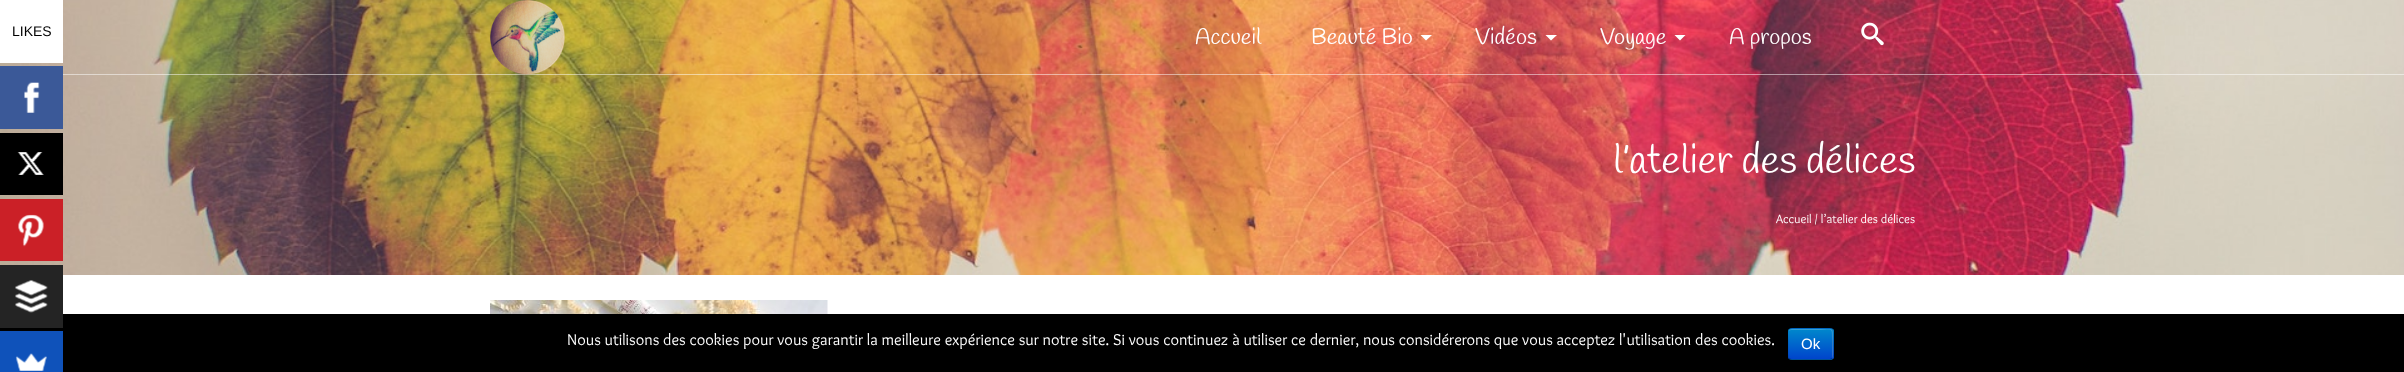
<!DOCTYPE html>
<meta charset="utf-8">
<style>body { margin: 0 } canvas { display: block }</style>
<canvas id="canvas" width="2404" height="372"></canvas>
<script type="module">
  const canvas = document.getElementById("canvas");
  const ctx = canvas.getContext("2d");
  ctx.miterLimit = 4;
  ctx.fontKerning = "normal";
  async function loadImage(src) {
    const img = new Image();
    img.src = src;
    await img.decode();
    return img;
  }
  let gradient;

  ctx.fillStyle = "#ffffff";
  ctx.fillRect(0, 0, 2404, 372);
  ctx.drawImage(await loadImage("img8.png"), 0, 0, 2404, 275);
  ctx.fillRect(0, 0, 63, 63);
  ctx.font = "14px Liberation Sans";
  ctx.fillStyle = "#000000";
  ctx.fillText("LIKES", 12, 36);
  ctx.fillStyle = "#3b5998";
  ctx.fillRect(0, 66, 63, 63);
  ctx.drawImage(await loadImage("img1.png"), 24, 82, 16, 31);
  ctx.fillStyle = "#000000";
  ctx.fillRect(0, 133, 63, 62);
  ctx.drawImage(await loadImage("img2.png"), 17, 152, 27, 23);
  ctx.fillStyle = "#cb2027";
  ctx.fillRect(0, 199, 63, 62);
  ctx.drawImage(await loadImage("img3.png"), 18, 214, 26, 33);
  ctx.fillStyle = "#000000";
  ctx.fillRect(0, 314, 2404, 58);
  ctx.fillStyle = "#242424";
  ctx.fillRect(0, 265, 63, 63);
  ctx.drawImage(await loadImage("img4.png"), 15, 280, 33, 33);
  ctx.fillStyle = "#0f52ba";
  ctx.fillRect(0, 331, 63, 41);
  ctx.drawImage(await loadImage("img5.png"), 15, 353, 32, 18);
  ctx.fillStyle = "rgba(255, 255, 255, 0.5)";
  ctx.fillRect(63, 74, 2341, 1);
  ctx.drawImage(await loadImage("img6.png"), 490, 0, 75, 75);
  ctx.font = "22.5px Handlee";
  ctx.fillStyle = "#ffffff";
  ctx.fillText("Accueil", 1195, 44);
  ctx.fillText("Beauté Bio", 1311, 44);
  ctx.beginPath();
  ctx.moveTo(1420.5, 35);
  ctx.lineTo(1426, 40.5);
  ctx.lineTo(1432, 35);
  ctx.closePath();
  ctx.fill();
  ctx.fillText("Vidéos", 1475, 44);
  ctx.beginPath();
  ctx.moveTo(1545.5, 35);
  ctx.lineTo(1551, 40.5);
  ctx.lineTo(1557, 35);
  ctx.closePath();
  ctx.fill();
  ctx.fillText("Voyage", 1600, 44);
  ctx.beginPath();
  ctx.moveTo(1674.5, 35);
  ctx.lineTo(1680, 40.5);
  ctx.lineTo(1685.5, 35);
  ctx.closePath();
  ctx.fill();
  ctx.fillText("A propos", 1729, 44);
  ctx.drawImage(await loadImage("img7.png"), 1861, 22, 23, 24);
  ctx.font = "40px Handlee";
  ctx.fillText("l’atelier des délices", 1613, 173);
  ctx.font = "12.5px Overlock";
  ctx.fillText("Accueil / l’atelier des délices", 1776, 223);
  ctx.drawImage(await loadImage("img9.png"), 490, 300, 338, 14);
  ctx.font = "16.25px Overlock";
  ctx.fillText("Nous utilisons des cookies pour vous garantir la meilleure expérience sur notre site. Si vous continuez à utiliser ce dernier, nous considérerons que vous acceptez l'utilisation des cookies.", 567, 345);
  ctx.fillStyle = "#006dcc";
  ctx.beginPath();
  ctx.roundRect(1788, 328, 46, 32, 4);
  ctx.fill();
  ctx.save();
  ctx.beginPath();
  ctx.roundRect(1788, 328, 46, 32, 4);
  ctx.clip();
  gradient = ctx.createLinearGradient(1811, 329, 1811, 359);
  gradient.addColorStop(0, "#0088cc");
  gradient.addColorStop(1, "#0044cc");
  ctx.fillStyle = gradient;
  ctx.fillRect(1788, 329, 46, 30);
  ctx.restore();
  ctx.fillStyle = "rgba(255, 255, 255, 0.2)";
  ctx.beginPath();
  ctx.moveTo(1791, 330);
  ctx.lineTo(1817, 330);
  ctx.bezierCurveTo(1833, 330, 1832, 326, 1832, 341);
  ctx.lineTo(1832, 359);
  ctx.bezierCurveTo(1834, 357, 1833, 347, 1833, 344);
  ctx.lineTo(1833, 336);
  ctx.bezierCurveTo(1833, 328, 1833, 329, 1824, 329);
  ctx.lineTo(1792, 329);
  ctx.bezierCurveTo(1790, 329, 1789, 330, 1789, 332);
  ctx.bezierCurveTo(1789, 331, 1790, 330, 1791, 330);
  ctx.closePath();
  ctx.fill();
  ctx.beginPath();
  ctx.moveTo(1832, 358.5);
  ctx.lineTo(1830, 359.5);
  ctx.lineTo(1791, 359.5);
  ctx.lineTo(1789, 358.5);
  ctx.strokeStyle = "rgba(0, 0, 0, 0.25)";
  ctx.lineWidth = 1.2;
  ctx.stroke();
  ctx.beginPath();
  ctx.moveTo(1789, 358.5);
  ctx.bezierCurveTo(1787, 356.5, 1788, 346.5, 1788, 344);
  ctx.bezierCurveTo(1788, 329, 1784.5, 328, 1797.5, 328);
  ctx.lineTo(1823.5, 328);
  ctx.bezierCurveTo(1836.5, 328, 1833, 329, 1833, 344);
  ctx.bezierCurveTo(1833, 346.5, 1834.5, 356.5, 1832, 358.5);
  ctx.strokeStyle = "rgba(0, 0, 0, 0.1)";
  ctx.stroke();
  ctx.font = "15px Liberation Sans";
  ctx.fillStyle = "#ffffff";
  ctx.fillText("Ok", 1801, 349);
</script>
